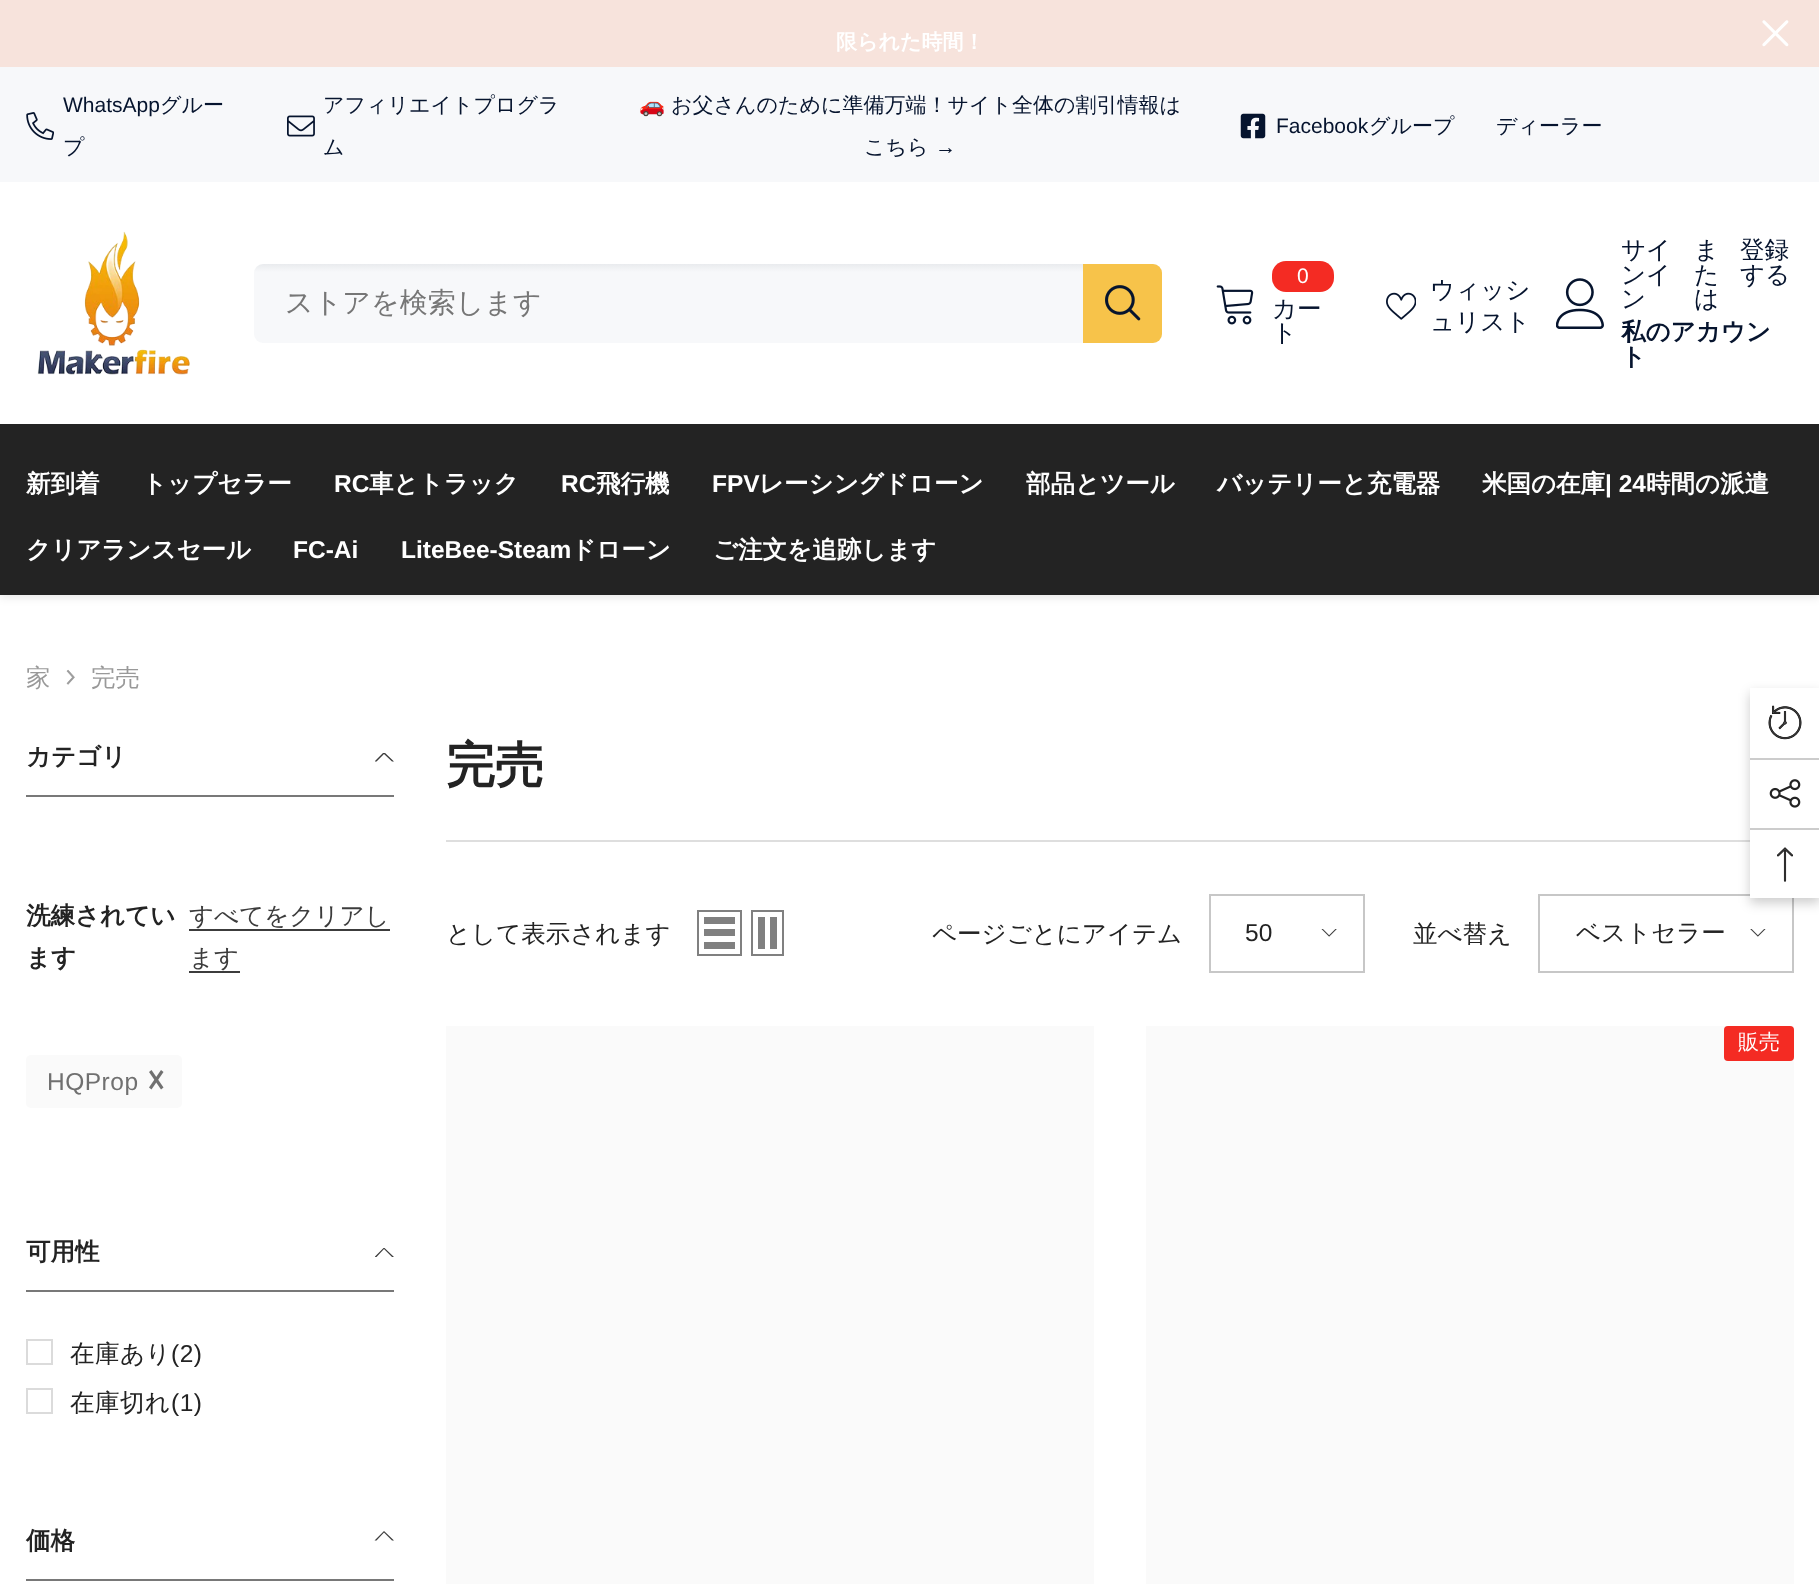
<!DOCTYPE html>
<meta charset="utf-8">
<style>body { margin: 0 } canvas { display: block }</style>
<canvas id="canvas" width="1819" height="1584"></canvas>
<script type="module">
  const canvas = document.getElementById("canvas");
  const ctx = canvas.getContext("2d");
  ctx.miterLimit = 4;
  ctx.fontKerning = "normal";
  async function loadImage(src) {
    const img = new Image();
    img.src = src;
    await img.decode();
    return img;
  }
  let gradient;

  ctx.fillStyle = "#f7f8fa";
  ctx.fillRect(0, 0, 1819, 1584);
  ctx.fillStyle = "#f7e3dc";
  ctx.fillRect(0, 0, 1819, 67);
  ctx.font = "bold 21px WenQuanYi Zen Hei";
  ctx.fillStyle = "#ffffff";
  ctx.fillText("限られた時間！", 836, 49);
  ctx.drawImage(await loadImage("img1.png"), 1762, 20, 27, 27);
  ctx.drawImage(await loadImage("img2.png"), 26, 112, 28, 28);
  ctx.font = "21px Arimo";
  ctx.fillStyle = "#06142e";
  ctx.fillText("WhatsApp", 63, 112);
  ctx.font = "500 21px WenQuanYi Zen Hei";
  ctx.fillText("グルー", 160, 112);
  ctx.fillText("プ", 63, 154);
  ctx.drawImage(await loadImage("img3.png"), 287, 115, 28, 22);
  ctx.fillText("アフィリエイトプログラ", 323, 112);
  ctx.fillText("ム", 323, 154);
  ctx.font = "21px Noto Color Emoji";
  ctx.fillText("🚗", 639, 112);
  ctx.font = "500 21px WenQuanYi Zen Hei";
  ctx.fillText("お父さんのために準備万端！サイト全体の割引情報は", 671, 112);
  ctx.fillText("こちら", 864, 154);
  ctx.font = "21px Liberation Serif";
  ctx.fillText("→", 935, 154);
  ctx.drawImage(await loadImage("img4.png"), 1240, 113, 26, 26);
  ctx.font = "21px Arimo";
  ctx.fillText("Facebook", 1276, 133);
  ctx.font = "500 21px WenQuanYi Zen Hei";
  ctx.fillText("グループ", 1369, 133);
  ctx.fillText("ディーラー", 1496, 133);
  ctx.fillStyle = "#ffffff";
  ctx.fillRect(0, 595, 1819, 989);
  ctx.fillStyle = "rgba(0, 0, 0, 0.1)";
  ctx.filter = "blur(5px)";
  ctx.beginPath();
  ctx.rect(0, 425, 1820, 172);
  ctx.fill();
  ctx.filter = "none";
  ctx.fillStyle = "#ffffff";
  ctx.fillRect(0, 182, 1819, 242);
  ctx.drawImage(await loadImage("img5.png"), 37, 231, 153, 144);
  gradient = ctx.createLinearGradient(708, 264, 708, 343);
  gradient.addColorStop(0, "#e9ebee");
  gradient.addColorStop(0.1, "#f7f8fa");
  gradient.addColorStop(1, "#f7f8fa");
  ctx.fillStyle = gradient;
  ctx.beginPath();
  ctx.roundRect(254, 264, 908, 79, 9);
  ctx.fill();
  ctx.font = "500 28px WenQuanYi Zen Hei";
  ctx.fillStyle = "#767676";
  ctx.fillText("ストアを検索します", 285, 312);
  ctx.fillStyle = "#f7c34a";
  ctx.beginPath();
  ctx.roundRect(1083, 264, 79, 79, [0, 9, 9, 0]);
  ctx.fill();
  ctx.drawImage(await loadImage("img6.png"), 1105, 285, 36, 36);
  ctx.drawImage(await loadImage("img7.png"), 1216, 285, 38, 40);
  ctx.fillStyle = "#f42b23";
  ctx.beginPath();
  ctx.roundRect(1272, 261, 62, 31, 14);
  ctx.fill();
  ctx.font = "21px Arimo";
  ctx.fillStyle = "#ffffff";
  ctx.fillText("0", 1297, 283);
  ctx.font = "500 24.5px WenQuanYi Zen Hei";
  ctx.fillStyle = "#06142e";
  ctx.fillText("カー", 1272, 317);
  ctx.fillText("ト", 1272, 341);
  ctx.drawImage(await loadImage("img8.png"), 1386, 292, 30, 28);
  ctx.fillText("ウィッシ", 1430, 298);
  ctx.fillText("ュリスト", 1430, 330);
  ctx.drawImage(await loadImage("img9.png"), 1556, 278, 48, 51);
  ctx.fillText("サイ", 1621, 258);
  ctx.fillText("ンイ", 1621, 283);
  ctx.fillText("ン", 1621, 307);
  ctx.fillText("ま", 1694, 258);
  ctx.fillText("た", 1694, 283);
  ctx.fillText("は", 1694, 307);
  ctx.fillText("登録", 1740, 258);
  ctx.fillText("する", 1740, 283);
  ctx.font = "bold 24.5px WenQuanYi Zen Hei";
  ctx.fillText("私のアカウン", 1621, 340);
  ctx.fillText("ト", 1621, 365);
  ctx.fillStyle = "#232323";
  ctx.fillRect(0, 424, 1819, 171);
  ctx.fillStyle = "#ffffff";
  ctx.fillText("新到着", 26, 492);
  ctx.fillText("トップセラー", 142, 492);
  ctx.font = "bold 24.5px Arimo";
  ctx.fillText("RC", 334, 492);
  ctx.font = "bold 24.5px WenQuanYi Zen Hei";
  ctx.fillText("車とトラック", 369, 492);
  ctx.font = "bold 24.5px Arimo";
  ctx.fillText("RC", 561, 492);
  ctx.font = "bold 24.5px WenQuanYi Zen Hei";
  ctx.fillText("飛行機", 596, 492);
  ctx.font = "bold 24.5px Arimo";
  ctx.fillText("FPV", 712, 492);
  ctx.font = "bold 24.5px WenQuanYi Zen Hei";
  ctx.fillText("レーシングドローン", 759, 492);
  ctx.fillText("部品とツール", 1026, 492);
  ctx.fillText("バッテリーと充電器", 1217, 492);
  ctx.fillText("米国の在庫", 1482, 492);
  ctx.font = "bold 24.5px Arimo";
  ctx.fillText("| 24", 1605, 492);
  ctx.font = "bold 24.5px WenQuanYi Zen Hei";
  ctx.fillText("時間の派遣", 1646, 492);
  ctx.fillText("クリアランスセール", 26, 558);
  ctx.font = "bold 24.5px Arimo";
  ctx.fillText("FC-Ai", 293, 558);
  ctx.fillText("LiteBee-Steam", 401, 558);
  ctx.font = "bold 24.5px WenQuanYi Zen Hei";
  ctx.fillText("ドローン", 571, 558);
  ctx.fillText("ご注文を追跡します", 713, 558);
  ctx.font = "500 24.5px WenQuanYi Zen Hei";
  ctx.fillStyle = "#999999";
  ctx.fillText("家", 26, 686);
  ctx.drawImage(await loadImage("img10.png"), 66, 669, 9, 16);
  ctx.fillText("完売", 91, 686);
  ctx.fillStyle = "#787878";
  ctx.fillRect(26, 795, 368, 2);
  ctx.font = "bold 24.5px WenQuanYi Zen Hei";
  ctx.fillStyle = "#232323";
  ctx.fillText("カテゴリ", 26, 765);
  ctx.save();
  ctx.beginPath();
  ctx.rect(375, 753, 19, 10);
  ctx.clip();
  ctx.fillStyle = "#3c3c3c";
  ctx.beginPath();
  ctx.moveTo(384, 754);
  ctx.lineTo(392, 761.5);
  ctx.lineTo(394, 761.5);
  ctx.lineTo(384, 752);
  ctx.lineTo(374.5, 761.5);
  ctx.lineTo(376.5, 761.5);
  ctx.closePath();
  ctx.fill();
  ctx.restore();
  ctx.fillText("洗練されてい", 26, 924);
  ctx.fillText("ます", 26, 966);
  ctx.font = "500 24.5px WenQuanYi Zen Hei";
  ctx.fillStyle = "#3c3c3c";
  ctx.fillText("すべてをクリアし", 189, 924);
  ctx.fillRect(189, 929, 201, 2);
  ctx.fillText("ます", 189, 966);
  ctx.fillRect(189, 971, 51, 2);
  ctx.fillStyle = "#fafafa";
  ctx.beginPath();
  ctx.roundRect(26, 1055, 156, 53, 5);
  ctx.fill();
  ctx.letterSpacing = "0.5px";
  ctx.font = "24.5px Arimo";
  ctx.fillStyle = "#707070";
  ctx.fillText("HQProp", 47, 1090);
  ctx.beginPath();
  ctx.moveTo(161, 1070);
  ctx.lineTo(163.5, 1072);
  ctx.lineTo(151.5, 1089.5);
  ctx.lineTo(149, 1087.5);
  ctx.closePath();
  ctx.fill();
  ctx.beginPath();
  ctx.moveTo(149, 1072);
  ctx.lineTo(151.5, 1070);
  ctx.lineTo(163.5, 1087.5);
  ctx.lineTo(161, 1089.5);
  ctx.closePath();
  ctx.fill();
  ctx.fillStyle = "#787878";
  ctx.fillRect(26, 1290, 368, 2);
  ctx.letterSpacing = "0px";
  ctx.font = "bold 24.5px WenQuanYi Zen Hei";
  ctx.fillStyle = "#232323";
  ctx.fillText("可用性", 26, 1260);
  ctx.save();
  ctx.beginPath();
  ctx.rect(375, 1248, 19, 10);
  ctx.clip();
  ctx.fillStyle = "#3c3c3c";
  ctx.beginPath();
  ctx.moveTo(384, 1249);
  ctx.lineTo(392, 1257);
  ctx.lineTo(394, 1257);
  ctx.lineTo(384, 1247.5);
  ctx.lineTo(374.5, 1257);
  ctx.lineTo(376.5, 1257);
  ctx.closePath();
  ctx.fill();
  ctx.restore();
  ctx.strokeStyle = "#dbdbdb";
  ctx.lineWidth = 2;
  ctx.strokeRect(27, 1340, 25, 24);
  ctx.letterSpacing = "0.5px";
  ctx.font = "500 24.5px WenQuanYi Zen Hei";
  ctx.fillText("在庫あり", 70, 1362);
  ctx.font = "24.5px Arimo";
  ctx.fillText("(2)", 171, 1362);
  ctx.strokeRect(27, 1389, 25, 24);
  ctx.font = "500 24.5px WenQuanYi Zen Hei";
  ctx.fillText("在庫切れ", 70, 1411);
  ctx.font = "24.5px Arimo";
  ctx.fillText("(1)", 171, 1411);
  ctx.fillStyle = "#787878";
  ctx.fillRect(26, 1579, 368, 2);
  ctx.letterSpacing = "0px";
  ctx.font = "bold 24.5px WenQuanYi Zen Hei";
  ctx.fillStyle = "#232323";
  ctx.fillText("価格", 26, 1549);
  ctx.fillStyle = "#3c3c3c";
  ctx.beginPath();
  ctx.moveTo(384, 1532.5);
  ctx.lineTo(392, 1540.5);
  ctx.lineTo(394, 1540.5);
  ctx.lineTo(384, 1531);
  ctx.lineTo(374.5, 1540.5);
  ctx.lineTo(376.5, 1540.5);
  ctx.closePath();
  ctx.fill();
  ctx.font = "bold 49px WenQuanYi Zen Hei";
  ctx.fillStyle = "#232323";
  ctx.fillText("完売", 446, 782);
  ctx.fillStyle = "#dedede";
  ctx.fillRect(446, 840, 1304, 2);
  ctx.font = "500 24.5px WenQuanYi Zen Hei";
  ctx.fillStyle = "#232323";
  ctx.fillText("として表示されます", 446, 942);
  ctx.strokeStyle = "#808080";
  ctx.strokeRect(698, 911, 43, 44);
  ctx.fillStyle = "#808080";
  ctx.fillRect(704, 942, 31, 7);
  ctx.fillRect(704, 929, 31, 7);
  ctx.fillRect(704, 917, 31, 7);
  ctx.strokeRect(752, 911, 31, 44);
  ctx.fillRect(770, 917, 7, 32);
  ctx.fillRect(758, 917, 7, 32);
  ctx.fillStyle = "#232323";
  ctx.fillText("ページごとにアイテム", 932, 942);
  ctx.strokeStyle = "#c7c7c7";
  ctx.strokeRect(1210, 895, 154, 77);
  ctx.font = "24.5px Arimo";
  ctx.fillText("50", 1245, 941);
  ctx.drawImage(await loadImage("img11.png"), 1321, 929, 16, 8);
  ctx.font = "500 24.5px WenQuanYi Zen Hei";
  ctx.fillText("並べ替え", 1413, 942);
  ctx.strokeRect(1539, 895, 254, 77);
  ctx.fillText("ベストセラー", 1576, 941);
  ctx.drawImage(await loadImage("img12.png"), 1750, 929, 16, 8);
  ctx.fillStyle = "#fafafa";
  ctx.fillRect(446, 1026, 648, 558);
  ctx.fillRect(1146, 1026, 648, 558);
  ctx.fillStyle = "#f42b23";
  ctx.beginPath();
  ctx.roundRect(1724, 1026, 70, 35, 4);
  ctx.fill();
  ctx.font = "500 21px WenQuanYi Zen Hei";
  ctx.fillStyle = "#ffffff";
  ctx.fillText("販売", 1738, 1049);
  ctx.fillStyle = "rgba(0, 0, 0, 0.2)";
  ctx.filter = "blur(6px)";
  ctx.beginPath();
  ctx.rect(1750, 693, 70, 210);
  ctx.fill();
  ctx.filter = "none";
  ctx.fillStyle = "#ffffff";
  ctx.fillRect(1750, 688, 69, 210);
  ctx.drawImage(await loadImage("img13.png"), 1768, 705, 34, 35);
  ctx.fillStyle = "#cccccc";
  ctx.fillRect(1750, 758, 69, 2);
  ctx.drawImage(await loadImage("img14.png"), 1769, 779, 32, 29);
  ctx.fillRect(1750, 828, 69, 2);
  ctx.drawImage(await loadImage("img15.png"), 1777, 847, 16, 35);
</script>
